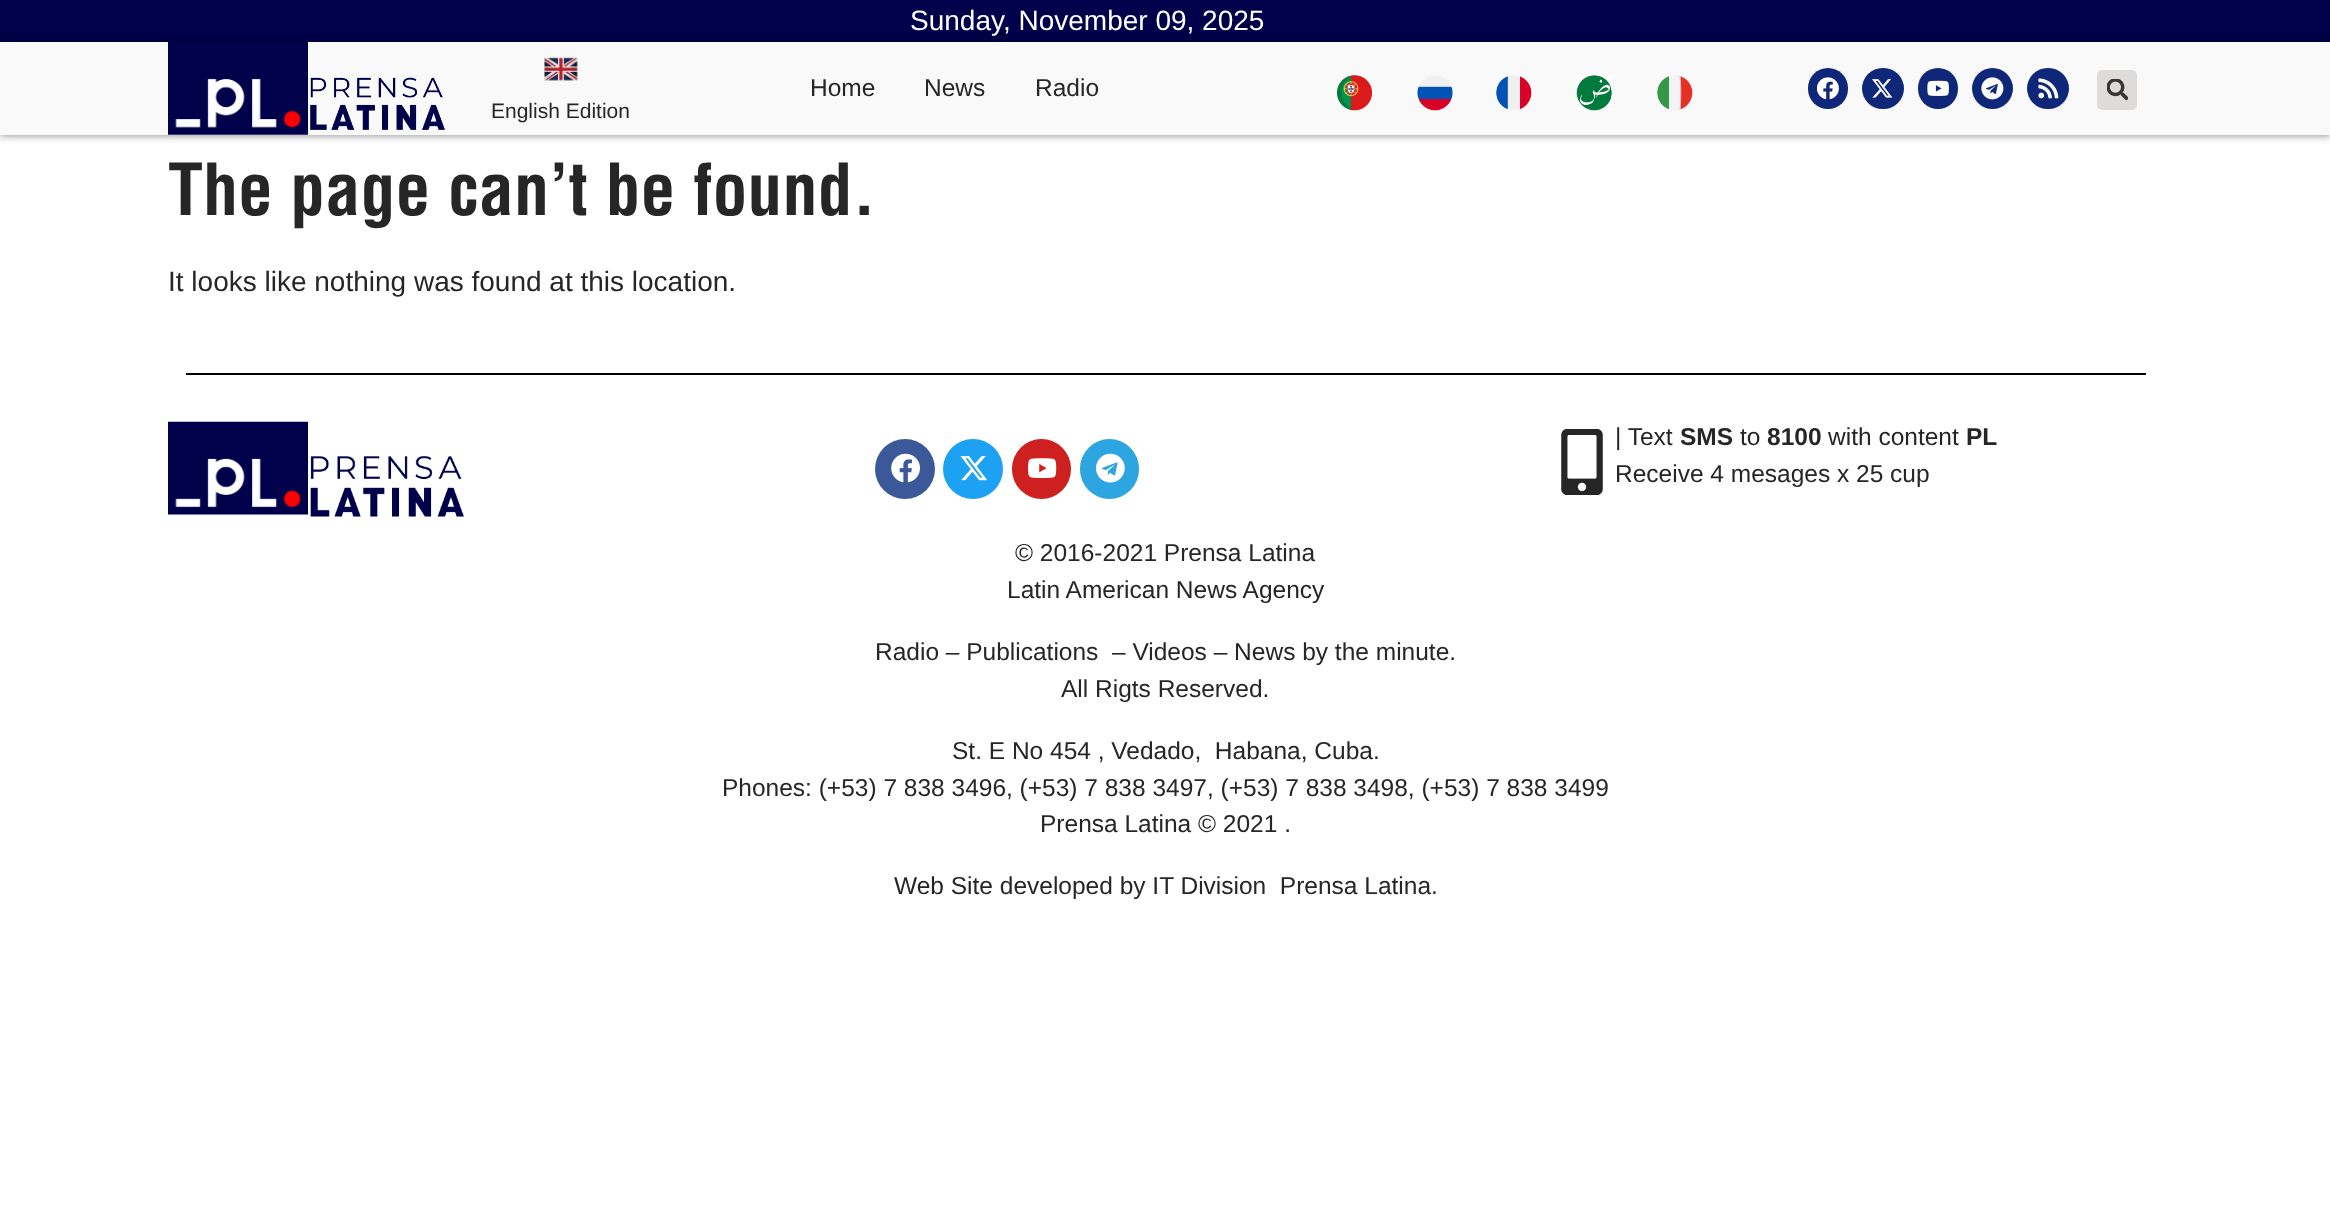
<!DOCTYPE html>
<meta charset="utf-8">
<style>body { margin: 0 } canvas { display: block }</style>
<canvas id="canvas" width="2330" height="1230"></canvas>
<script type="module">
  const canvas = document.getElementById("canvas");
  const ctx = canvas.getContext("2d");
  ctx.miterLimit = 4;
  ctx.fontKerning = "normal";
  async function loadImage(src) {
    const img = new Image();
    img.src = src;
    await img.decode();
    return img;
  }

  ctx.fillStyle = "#ffffff";
  ctx.fillRect(0, 0, 2330, 1230);
  ctx.fillStyle = "#00004b";
  ctx.fillRect(0, 0, 2330, 42);
  ctx.font = "28px Liberation Sans";
  ctx.fillStyle = "#ffffff";
  ctx.fillText("Sunday, November 09, 2025", 910, 30);
  ctx.fillStyle = "rgba(0, 0, 0, 0.5)";
  ctx.filter = "blur(4.5px)";
  ctx.beginPath();
  ctx.rect(0, 42, 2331, 93);
  ctx.fill();
  ctx.filter = "none";
  ctx.fillStyle = "#f9f9f9";
  ctx.fillRect(0, 42, 2330, 93);
  ctx.drawImage(await loadImage("img1.png"), 168, 42, 140, 93);
  ctx.drawImage(await loadImage("img2.png"), 310, 77, 135, 53);
  ctx.font = "24.5px Liberation Sans";
  ctx.fillStyle = "#262626";
  ctx.fillText("Home", 810, 96);
  ctx.fillText("News", 924, 96);
  ctx.fillText("Radio", 1035, 96);
  ctx.drawImage(await loadImage("img3.png"), 1337, 75, 35, 36);
  ctx.drawImage(await loadImage("img4.png"), 1417, 75, 36, 36);
  ctx.drawImage(await loadImage("img5.png"), 1496, 75, 36, 35);
  ctx.drawImage(await loadImage("img6.png"), 1576, 75, 36, 36);
  ctx.drawImage(await loadImage("img7.png"), 1657, 75, 36, 35);
  ctx.fillStyle = "#0f2779";
  ctx.beginPath();
  ctx.roundRect(1808, 68, 40, 41, 20);
  ctx.fill();
  ctx.drawImage(await loadImage("img8.png"), 1817, 77, 22, 23);
  ctx.beginPath();
  ctx.roundRect(1862, 68, 42, 41, 20.5);
  ctx.fill();
  ctx.drawImage(await loadImage("img9.png"), 1872, 79, 21, 19);
  ctx.beginPath();
  ctx.roundRect(1918, 68, 40, 41, 20);
  ctx.fill();
  ctx.drawImage(await loadImage("img10.png"), 1927, 80, 22, 16);
  ctx.beginPath();
  ctx.arc(1992.5, 88.5, 20.5, 0, Math.PI * 2);
  ctx.fill();
  ctx.drawImage(await loadImage("img11.png"), 1981, 77, 23, 23);
  ctx.beginPath();
  ctx.roundRect(2027, 68, 42, 41, 20.5);
  ctx.fill();
  ctx.drawImage(await loadImage("img12.png"), 2038, 78, 21, 21);
  ctx.fillStyle = "#dedbdb";
  ctx.beginPath();
  ctx.roundRect(2097, 70, 40, 40, 5);
  ctx.fill();
  ctx.drawImage(await loadImage("img13.png"), 2107, 79, 21, 22);
  ctx.drawImage(await loadImage("img14.png"), 544, 57, 34, 24);
  ctx.font = "21px Liberation Sans";
  ctx.fillStyle = "#262626";
  ctx.fillText("English Edition", 491, 118);
  ctx.font = "bold 70px Helvetica";
  ctx.fillText("The page can’t be found.", 168, 215);
  ctx.font = "28px Liberation Sans";
  ctx.fillText("It looks like nothing was found at this location.", 168, 291);
  ctx.fillStyle = "#000000";
  ctx.fillRect(186, 373, 1960, 2);
  ctx.drawImage(await loadImage("img15.png"), 168, 421, 140, 94);
  ctx.drawImage(await loadImage("img16.png"), 310, 456, 154, 61);
  ctx.fillStyle = "#3b5998";
  ctx.beginPath();
  ctx.arc(905, 469, 30, 0, Math.PI * 2);
  ctx.fill();
  ctx.drawImage(await loadImage("img17.png"), 891, 453, 29, 30);
  ctx.fillStyle = "#1da1f2";
  ctx.beginPath();
  ctx.arc(973, 469, 30, 0, Math.PI * 2);
  ctx.fill();
  ctx.drawImage(await loadImage("img18.png"), 960, 456, 28, 25);
  ctx.fillStyle = "#cd201f";
  ctx.beginPath();
  ctx.roundRect(1012, 439, 59, 60, 29.5);
  ctx.fill();
  ctx.drawImage(await loadImage("img19.png"), 1028, 458, 29, 21);
  ctx.fillStyle = "#2ca5e0";
  ctx.beginPath();
  ctx.roundRect(1080, 439, 59, 60, 29.5);
  ctx.fill();
  ctx.drawImage(await loadImage("img20.png"), 1096, 453, 29, 30);
  ctx.drawImage(await loadImage("img21.png"), 1561, 429, 42, 66);
  ctx.font = "24.5px Liberation Sans";
  ctx.fillStyle = "#262626";
  ctx.fillText("| Text", 1615, 445);
  ctx.font = "bold 24.5px Liberation Sans";
  ctx.fillText("SMS", 1680, 445);
  ctx.font = "24.5px Liberation Sans";
  ctx.fillText("to", 1740, 445);
  ctx.font = "bold 24.5px Liberation Sans";
  ctx.fillText("8100", 1767, 445);
  ctx.font = "24.5px Liberation Sans";
  ctx.fillText("with content", 1828, 445);
  ctx.font = "bold 24.5px Liberation Sans";
  ctx.fillText("PL", 1966, 445);
  ctx.font = "24.5px Liberation Sans";
  ctx.fillText("Receive 4 mesages x 25 cup", 1615, 482);
  ctx.fillText("© 2016-2021 Prensa Latina", 1015, 561);
  ctx.fillText("Latin American News Agency", 1007, 598);
  ctx.fillText("Radio – Publications  – Videos – News by the minute.", 875, 660);
  ctx.fillText("All Rigts Reserved.", 1061, 697);
  ctx.fillText("St. E No 454 , Vedado,  Habana, Cuba.", 952, 759);
  ctx.fillText("Phones: (+53) 7 838 3496, (+53) 7 838 3497, (+53) 7 838 3498, (+53) 7 838 3499", 722, 796);
  ctx.fillText("Prensa Latina © 2021 .", 1040, 832);
  ctx.fillText("Web Site developed by IT Division  Prensa Latina.", 894, 894);
</script>
